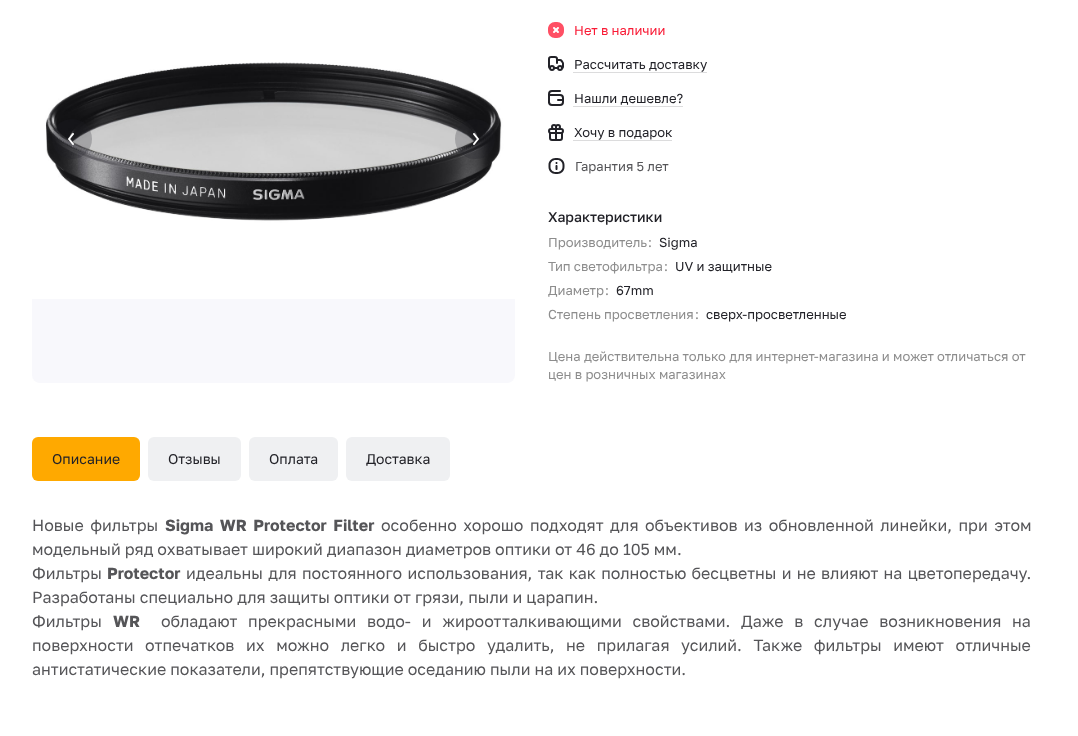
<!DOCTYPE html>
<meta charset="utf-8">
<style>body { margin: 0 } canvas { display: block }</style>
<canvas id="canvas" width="1078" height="736"></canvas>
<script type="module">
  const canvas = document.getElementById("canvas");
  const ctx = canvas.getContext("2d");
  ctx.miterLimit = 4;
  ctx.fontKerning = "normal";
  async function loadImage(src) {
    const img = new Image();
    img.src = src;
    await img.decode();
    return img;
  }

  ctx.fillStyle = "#ffffff";
  ctx.fillRect(0, 0, 1078, 736);
  ctx.fillStyle = "#f8f8fc";
  ctx.beginPath();
  ctx.roundRect(32, -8, 483, 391, 8);
  ctx.fill();
  ctx.drawImage(await loadImage("img1.png"), 32, 0, 483, 299);
  ctx.fillStyle = "rgba(34, 34, 40, 0.24)";
  ctx.beginPath();
  ctx.arc(72, 139, 20, 0, Math.PI * 2);
  ctx.fill();
  ctx.drawImage(await loadImage("img2.png"), 68, 133, 6, 12);
  ctx.beginPath();
  ctx.arc(475, 139, 20, 0, Math.PI * 2);
  ctx.fill();
  ctx.drawImage(await loadImage("img3.png"), 473, 133, 6, 12);
  ctx.drawImage(await loadImage("img4.png"), 548, 22, 16, 16);
  ctx.font = "13px Golos Text";
  ctx.fillStyle = "#f91a35";
  ctx.fillText("Нет в наличии", 574, 35);
  ctx.drawImage(await loadImage("img5.png"), 548, 56, 16, 15);
  ctx.fillStyle = "#222228";
  ctx.fillText("Рассчитать доставку", 574, 69);
  ctx.beginPath();
  ctx.moveTo(573.5, 72.5);
  ctx.lineTo(707, 72.5);
  ctx.strokeStyle = "#b8b8ba";
  ctx.setLineDash([1, 1]);
  ctx.stroke();
  ctx.drawImage(await loadImage("img6.png"), 548, 90, 16, 16);
  ctx.fillText("Нашли дешевле?", 574, 103);
  ctx.beginPath();
  ctx.moveTo(573.5, 106.5);
  ctx.lineTo(683, 106.5);
  ctx.stroke();
  ctx.drawImage(await loadImage("img7.png"), 548, 124, 16, 17);
  ctx.fillText("Хочу в подарок", 574, 137);
  ctx.beginPath();
  ctx.moveTo(573.5, 140.5);
  ctx.lineTo(672, 140.5);
  ctx.stroke();
  ctx.drawImage(await loadImage("img8.png"), 548, 158, 17, 16);
  ctx.fillStyle = "#555558";
  ctx.fillText("Гарантия 5 лет", 575, 171);
  ctx.font = "500 14px Golos Text";
  ctx.fillStyle = "#222228";
  ctx.fillText("Характеристики", 548, 222);
  ctx.font = "13px Golos Text";
  ctx.fillStyle = "#8d8d8d";
  ctx.fillText("Производитель", 548, 247);
  ctx.fillText(":", 648, 247);
  ctx.fillStyle = "#222228";
  ctx.fillText("Sigma", 659, 247);
  ctx.fillStyle = "#8d8d8d";
  ctx.fillText("Тип светофильтра", 548, 271);
  ctx.fillText(":", 664, 271);
  ctx.fillStyle = "#222228";
  ctx.fillText("UV и защитные", 675, 271);
  ctx.fillStyle = "#8d8d8d";
  ctx.fillText("Диаметр", 548, 295);
  ctx.fillText(":", 605, 295);
  ctx.fillStyle = "#222228";
  ctx.fillText("67mm", 616, 295);
  ctx.fillStyle = "#8d8d8d";
  ctx.fillText("Степень просветления", 548, 319);
  ctx.fillText(":", 695, 319);
  ctx.fillStyle = "#222228";
  ctx.fillText("сверх-просветленные", 706, 319);
  ctx.fillStyle = "#8d8d8d";
  ctx.fillText("Цена действительна только для интернет-магазина и может отличаться от", 548, 361);
  ctx.fillText("цен в розничных магазинах", 548, 379);
  ctx.fillStyle = "#ffa900";
  ctx.beginPath();
  ctx.roundRect(32, 437, 108, 44, 6);
  ctx.fill();
  ctx.font = "14px Golos Text";
  ctx.fillStyle = "#222228";
  ctx.fillText("Описание", 52, 464);
  ctx.fillStyle = "#eff0f2";
  ctx.beginPath();
  ctx.roundRect(148, 437, 93, 44, 6);
  ctx.fill();
  ctx.fillStyle = "#222228";
  ctx.fillText("Отзывы", 168, 464);
  ctx.fillStyle = "#eff0f2";
  ctx.beginPath();
  ctx.roundRect(249, 437, 89, 44, 6);
  ctx.fill();
  ctx.fillStyle = "#222228";
  ctx.fillText("Оплата", 269, 464);
  ctx.fillStyle = "#eff0f2";
  ctx.beginPath();
  ctx.roundRect(346, 437, 104, 44, 6);
  ctx.fill();
  ctx.fillStyle = "#222228";
  ctx.fillText("Доставка", 366, 464);
  ctx.wordSpacing = "2.5px";
  ctx.font = "16px Golos Text";
  ctx.fillStyle = "#555558";
  ctx.fillText("Новые фильтры", 32, 531);
  ctx.font = "bold 16px Golos Text";
  ctx.fillText("Sigma WR Protector Filter", 165, 531);
  ctx.font = "16px Golos Text";
  ctx.fillText("особенно хорошо подходят для объективов из обновленной линейки, при этом", 381, 531);
  ctx.wordSpacing = "0px";
  ctx.fillText("модельный ряд охватывает широкий диапазон диаметров оптики от 46 до 105 мм.", 32, 555);
  ctx.fillText("Фильтры", 32, 579);
  ctx.font = "bold 16px Golos Text";
  ctx.fillText("Protector", 107, 579);
  ctx.wordSpacing = "1.25px";
  ctx.font = "16px Golos Text";
  ctx.fillText("идеальны для постоянного использования, так как полностью бесцветны и не влияют на цветопередачу.", 186, 579);
  ctx.wordSpacing = "0px";
  ctx.fillText("Разработаны специально для защиты оптики от грязи, пыли и царапин.", 32, 603);
  ctx.fillText("Фильтры", 32, 627);
  ctx.font = "bold 16px Golos Text";
  ctx.fillText("WR", 113, 627);
  ctx.wordSpacing = "6.75px";
  ctx.font = "16px Golos Text";
  ctx.fillText("обладают прекрасными водо- и жироотталкивающими свойствами. Даже в случае возникновения на", 161, 627);
  ctx.wordSpacing = "7.6px";
  ctx.fillText("поверхности отпечатков их можно легко и быстро удалить, не прилагая усилий. Также фильтры имеют отличные", 32, 651);
  ctx.wordSpacing = "0px";
  ctx.fillText("антистатические показатели, препятствующие оседанию пыли на их поверхности.", 32, 675);
</script>
